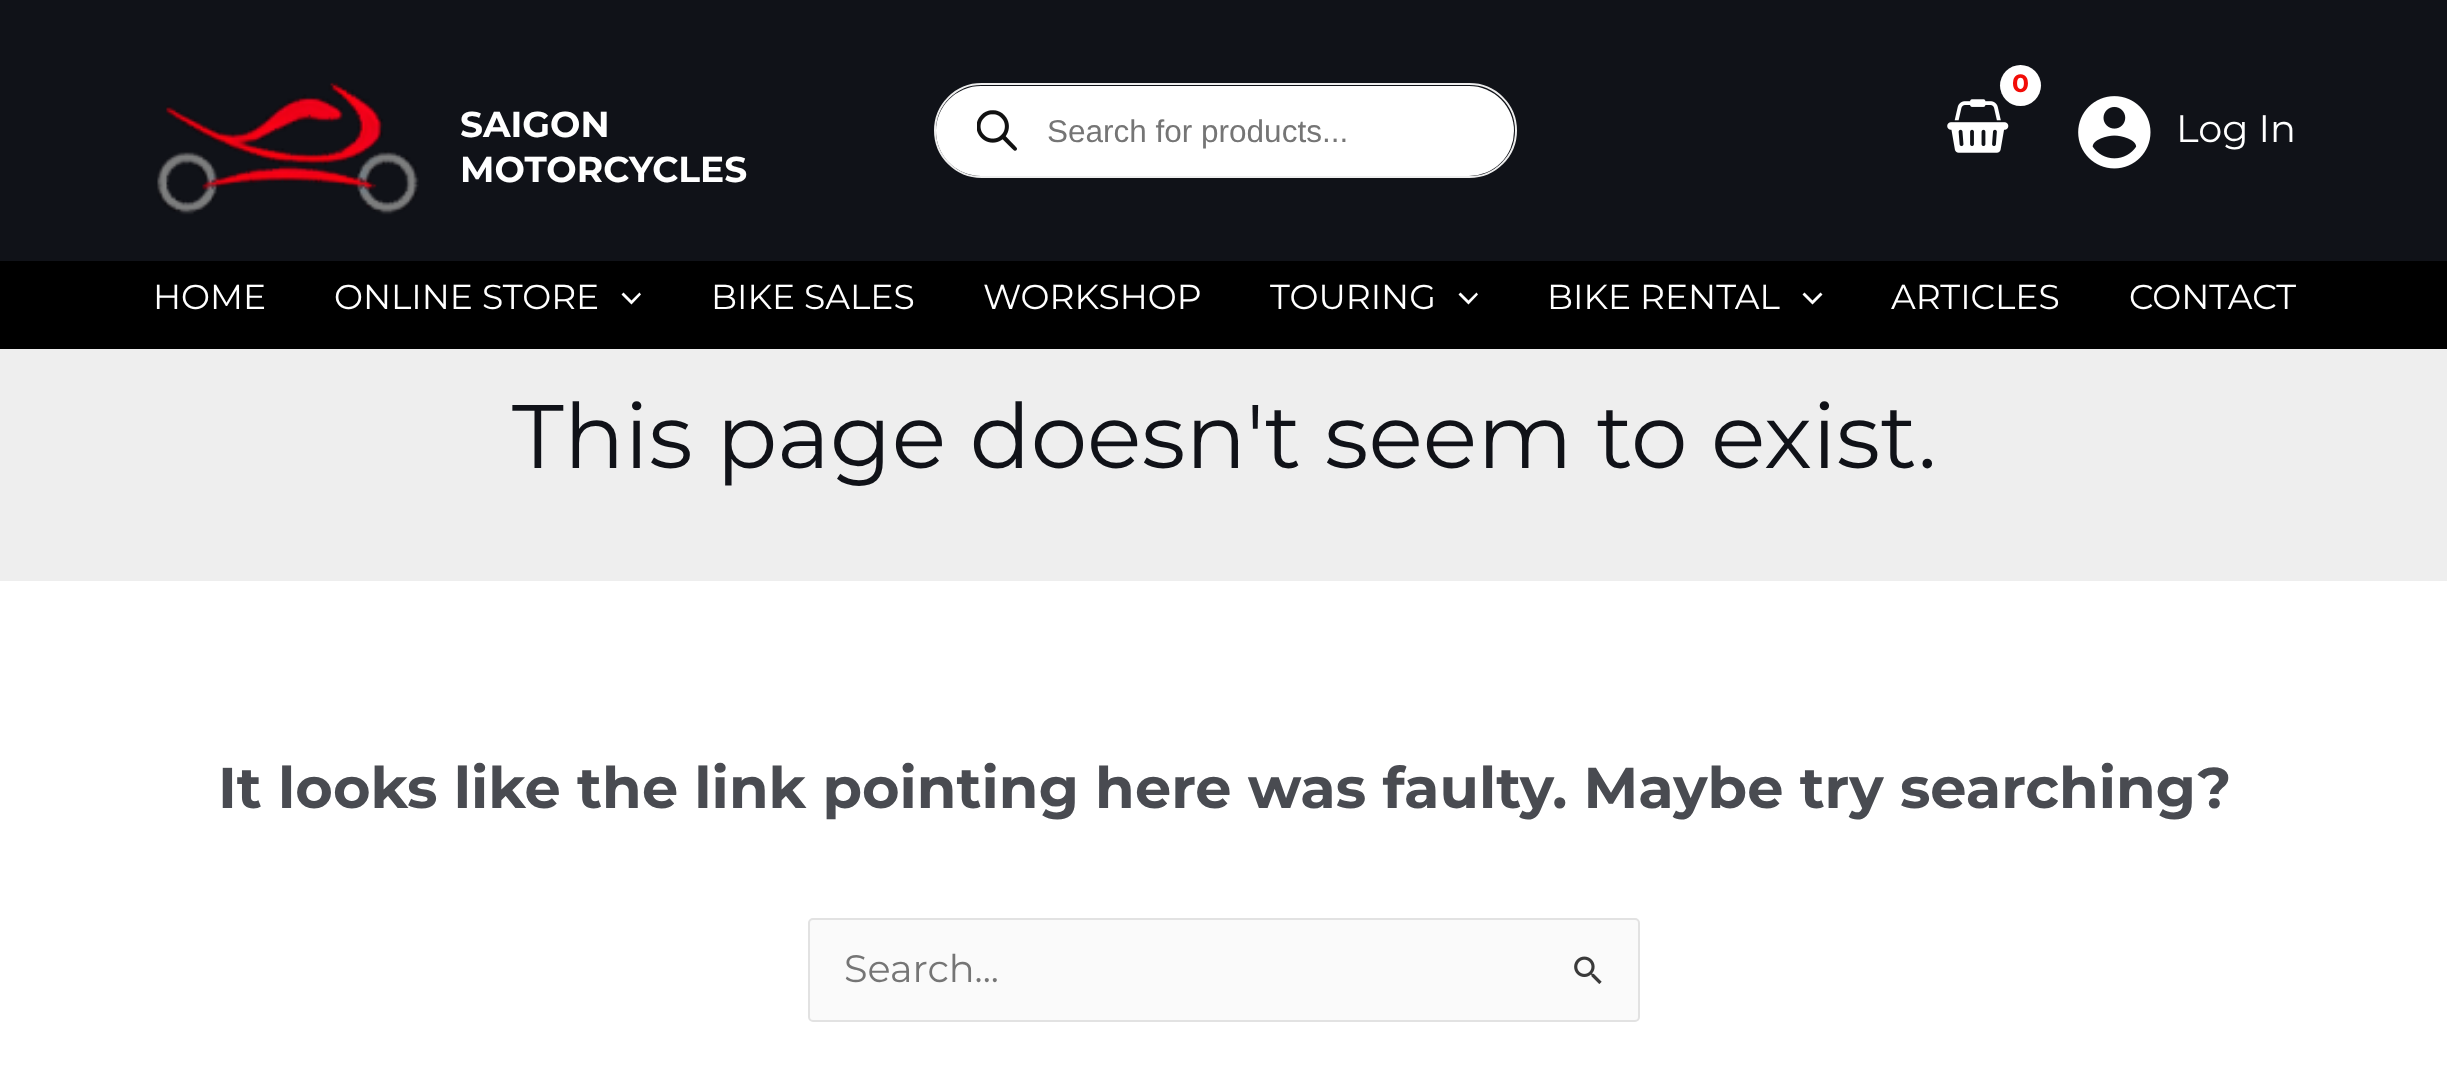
<!DOCTYPE html>
<meta charset="utf-8">
<style>body { margin: 0 } canvas { display: block }</style>
<canvas id="canvas" width="2447" height="1074"></canvas>
<script type="module">
  const canvas = document.getElementById("canvas");
  const ctx = canvas.getContext("2d");
  ctx.miterLimit = 4;
  ctx.fontKerning = "normal";
  async function loadImage(src) {
    const img = new Image();
    img.src = src;
    await img.decode();
    return img;
  }

  ctx.fillStyle = "#ffffff";
  ctx.fillRect(0, 0, 2447, 1074);
  ctx.fillStyle = "#101218";
  ctx.fillRect(0, 0, 2447, 261);
  ctx.drawImage(await loadImage("img1.png"), 157, 82, 262, 133);
  ctx.font = "bold 36px Montserrat";
  ctx.fillStyle = "#ffffff";
  ctx.fillText("SAIGON", 460, 137);
  ctx.fillText("MOTORCYCLES", 460, 182);
  ctx.beginPath();
  ctx.roundRect(935, 84, 581, 93, 46.5);
  ctx.strokeStyle = "#eeeeee";
  ctx.lineWidth = 2;
  ctx.stroke();
  ctx.beginPath();
  ctx.roundRect(936, 86, 578, 90, 45);
  ctx.fill();
  ctx.drawImage(await loadImage("img2.png"), 977, 110, 40, 41);
  ctx.font = "31.5px Liberation Sans";
  ctx.fillStyle = "#757575";
  ctx.fillText("Search for products...", 1047, 142);
  ctx.drawImage(await loadImage("img3.png"), 1947, 99, 62, 54);
  ctx.fillStyle = "#ffffff";
  ctx.beginPath();
  ctx.arc(2020.5, 85.5, 20.5, 0, Math.PI * 2);
  ctx.fill();
  ctx.letterSpacing = "-1px";
  ctx.font = "bold 25px Montserrat";
  ctx.fillStyle = "#f20c07";
  ctx.fillText("0", 2012, 92);
  ctx.drawImage(await loadImage("img4.png"), 2078, 96, 73, 73);
  ctx.letterSpacing = "0px";
  ctx.font = "38.25px Montserrat";
  ctx.fillStyle = "#ffffff";
  ctx.fillText("Log In", 2176, 142);
  ctx.fillStyle = "#000000";
  ctx.fillRect(0, 261, 2447, 88);
  ctx.font = "34.5px Montserrat";
  ctx.fillStyle = "#ffffff";
  ctx.fillText("HOME", 153, 309);
  ctx.fillText("ONLINE STORE", 334, 309);
  ctx.beginPath();
  ctx.moveTo(621.5, 294.5);
  ctx.lineTo(631.5, 304.5);
  ctx.lineTo(641, 294.5);
  ctx.lineTo(639.5, 292.5);
  ctx.lineTo(631.5, 300.5);
  ctx.lineTo(623.5, 292.5);
  ctx.closePath();
  ctx.fill();
  ctx.fillText("BIKE SALES", 711, 309);
  ctx.fillText("WORKSHOP", 983, 309);
  ctx.fillText("TOURING", 1270, 309);
  ctx.beginPath();
  ctx.moveTo(1458.5, 294.5);
  ctx.lineTo(1468.5, 304.5);
  ctx.lineTo(1478, 294.5);
  ctx.lineTo(1476.5, 292.5);
  ctx.lineTo(1468.5, 300.5);
  ctx.lineTo(1460.5, 292.5);
  ctx.closePath();
  ctx.fill();
  ctx.fillText("BIKE RENTAL", 1547, 309);
  ctx.beginPath();
  ctx.moveTo(1802.5, 294.5);
  ctx.lineTo(1812.5, 304.5);
  ctx.lineTo(1822.5, 294.5);
  ctx.lineTo(1820.5, 292.5);
  ctx.lineTo(1812.5, 300.5);
  ctx.lineTo(1804.5, 292.5);
  ctx.closePath();
  ctx.fill();
  ctx.fillText("ARTICLES", 1891, 309);
  ctx.fillText("CONTACT", 2129, 309);
  ctx.fillStyle = "#eeeeee";
  ctx.fillRect(0, 349, 2447, 232);
  ctx.font = "90px Montserrat";
  ctx.fillStyle = "#101218";
  ctx.fillText("This page doesn't seem to exist.", 512, 468);
  ctx.font = "bold 57.4px Montserrat";
  ctx.fillStyle = "#494b51";
  ctx.fillText("It looks like the link pointing here was faulty. Maybe try searching?", 218, 808);
  ctx.fillStyle = "#fafafa";
  ctx.beginPath();
  ctx.roundRect(809, 919, 830, 102, 4);
  ctx.fill();
  ctx.strokeStyle = "#e2e2e2";
  ctx.stroke();
  ctx.font = "38.25px Montserrat";
  ctx.fillStyle = "#757575";
  ctx.fillText("Search...", 844, 982);
  ctx.drawImage(await loadImage("img5.png"), 1574, 956, 28, 28);
</script>
